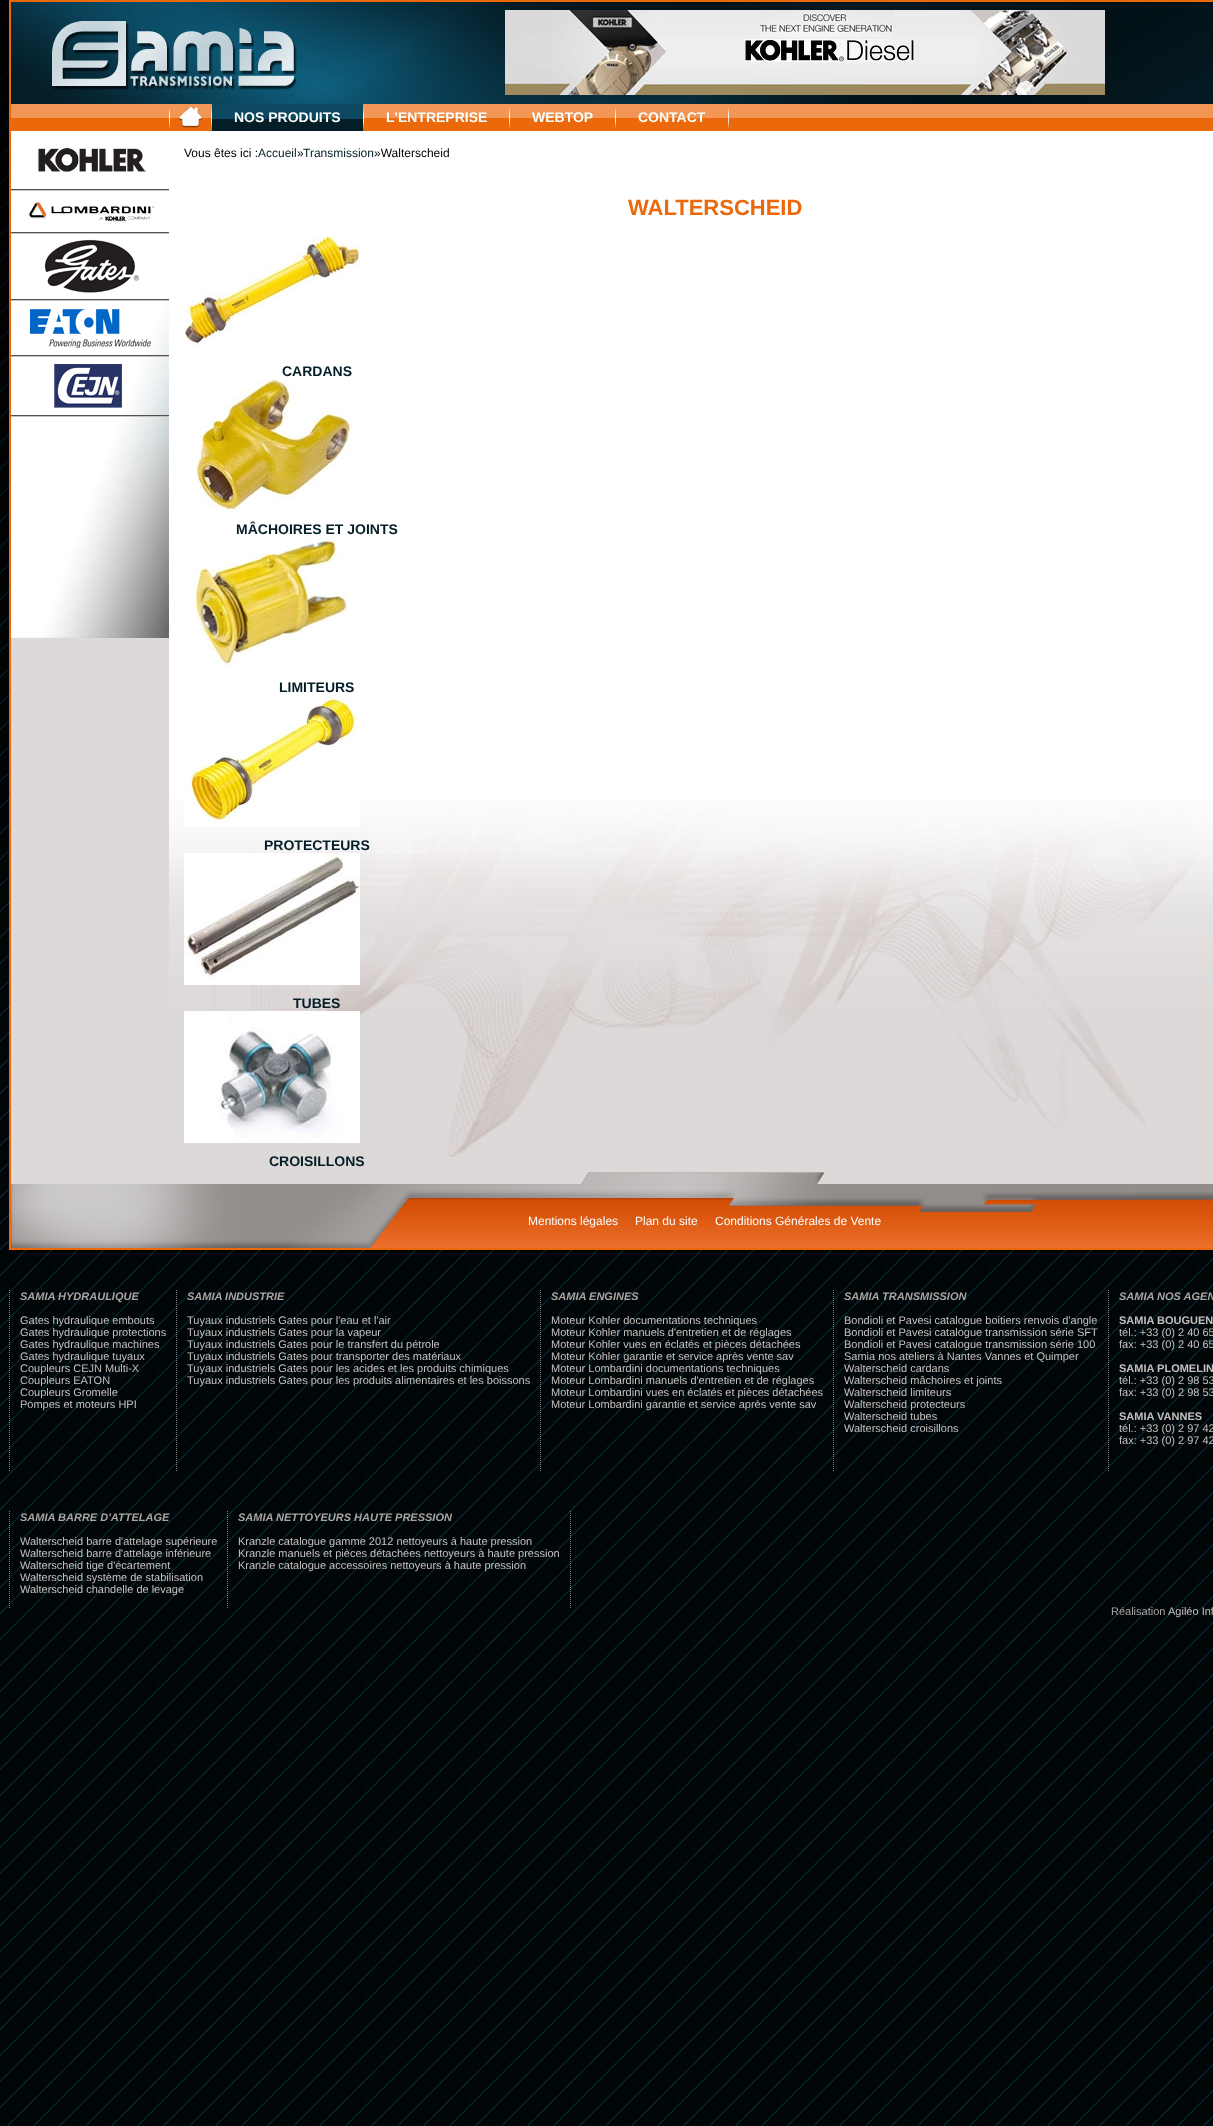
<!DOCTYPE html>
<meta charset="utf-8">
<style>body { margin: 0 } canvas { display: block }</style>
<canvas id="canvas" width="1213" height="2126"></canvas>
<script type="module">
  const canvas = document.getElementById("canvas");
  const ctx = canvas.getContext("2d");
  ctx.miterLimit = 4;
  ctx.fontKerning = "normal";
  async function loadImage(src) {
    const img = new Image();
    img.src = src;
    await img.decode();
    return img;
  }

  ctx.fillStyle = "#ffffff";
  ctx.fillRect(0, 0, 1213, 2126);
  ctx.drawImage(await loadImage("img1.png"), 0, 1050, 1213, 1076);
  ctx.drawImage(await loadImage("img2.png"), 0, 0, 9, 1050);
  ctx.drawImage(await loadImage("img3.png"), 9, 0, 1204, 1252);
  ctx.drawImage(await loadImage("img7.png"), 9, 38, 1204, 1183);
  ctx.drawImage(await loadImage("img4.png"), 11, 0, 1202, 104);
  ctx.drawImage(await loadImage("img5.png"), 49, 18, 250, 73);
  ctx.drawImage(await loadImage("img6.png"), 505, 10, 600, 85);
  ctx.drawImage(await loadImage("img8.png"), 11, 104, 1202, 27);
  ctx.drawImage(await loadImage("img9.png"), 169, 108, 1, 20);
  ctx.drawImage(await loadImage("img10.png"), 178, 106, 25, 22);
  ctx.drawImage(await loadImage("img9.png"), 211, 108, 1, 20);
  ctx.drawImage(await loadImage("img11.png"), 212, 104, 151, 27);
  ctx.font = "bold 14px Liberation Sans";
  ctx.fillStyle = "#fcfdfd";
  ctx.fillText("NOS PRODUITS", 234, 122);
  ctx.drawImage(await loadImage("img9.png"), 363, 108, 1, 20);
  ctx.fillText("L'ENTREPRISE", 386, 122);
  ctx.drawImage(await loadImage("img9.png"), 509, 108, 1, 20);
  ctx.fillText("WEBTOP", 532, 122);
  ctx.drawImage(await loadImage("img9.png"), 615, 108, 1, 20);
  ctx.fillText("CONTACT", 638, 122);
  ctx.drawImage(await loadImage("img9.png"), 728, 108, 1, 20);
  ctx.drawImage(await loadImage("img12.png"), 11, 131, 158, 507);
  ctx.drawImage(await loadImage("img13.png"), 11, 148, 158, 43);
  ctx.drawImage(await loadImage("img14.png"), 11, 202, 158, 32);
  ctx.drawImage(await loadImage("img15.png"), 11, 239, 158, 62);
  ctx.drawImage(await loadImage("img16.png"), 11, 309, 158, 48);
  ctx.drawImage(await loadImage("img17.png"), 11, 364, 158, 53);
  ctx.fillStyle = "#ddd9d8";
  ctx.fillRect(11, 638, 158, 546);
  ctx.drawImage(await loadImage("img18.png"), 169, 799, 1044, 385);
  ctx.font = "12px Liberation Sans";
  ctx.fillStyle = "#000000";
  ctx.fillText("Vous êtes ici :", 184, 157);
  ctx.fillStyle = "#041e27";
  ctx.fillText("Accueil", 258, 157);
  ctx.fillStyle = "#000000";
  ctx.fillText("»", 297, 157);
  ctx.fillStyle = "#041e27";
  ctx.fillText("Transmission", 303, 157);
  ctx.fillStyle = "#000000";
  ctx.fillText("»Walterscheid", 374, 157);
  ctx.font = "bold 22px Liberation Sans";
  ctx.fillStyle = "#eb690b";
  ctx.fillText("WALTERSCHEID", 628, 215);
  ctx.drawImage(await loadImage("img19.png"), 184, 236, 176, 113);
  ctx.font = "bold 14px Liberation Sans";
  ctx.fillStyle = "#041e27";
  ctx.fillText("CARDANS", 282, 376);
  ctx.drawImage(await loadImage("img20.png"), 192, 379, 160, 132);
  ctx.fillText("MÂCHOIRES ET JOINTS", 236, 534);
  ctx.drawImage(await loadImage("img21.png"), 192, 537, 159, 130);
  ctx.fillText("LIMITEURS", 279, 692);
  ctx.drawImage(await loadImage("img22.png"), 184, 695, 176, 132);
  ctx.fillText("PROTECTEURS", 264, 850);
  ctx.drawImage(await loadImage("img23.png"), 184, 853, 176, 132);
  ctx.fillText("TUBES", 293, 1008);
  ctx.drawImage(await loadImage("img24.png"), 184, 1011, 176, 132);
  ctx.fillText("CROISILLONS", 269, 1166);
  ctx.drawImage(await loadImage("img26.png"), 11, 1184, 1202, 64);
  ctx.drawImage(await loadImage("img25.png"), 580, 1172, 245, 13);
  ctx.font = "12px Liberation Sans";
  ctx.fillStyle = "#fcfdfd";
  ctx.fillText("Mentions légales", 528, 1225);
  ctx.fillText("Plan du site", 635, 1225);
  ctx.fillText("Conditions Générales de Vente", 715, 1225);
  ctx.beginPath();
  ctx.moveTo(9.5, 1290);
  ctx.lineTo(9.5, 1471);
  ctx.strokeStyle = "#808080";
  ctx.setLineDash([1, 1]);
  ctx.stroke();
  ctx.font = "italic bold 11px Liberation Sans";
  ctx.fillStyle = "#a8a5a3";
  ctx.fillText("SAMIA HYDRAULIQUE", 20, 1300);
  ctx.font = "11px Liberation Sans";
  ctx.fillStyle = "#c4c1c0";
  ctx.fillText("Gates hydraulique embouts", 20, 1324);
  ctx.fillText("Gates hydraulique protections", 20, 1336);
  ctx.fillText("Gates hydraulique machines", 20, 1348);
  ctx.fillText("Gates hydraulique tuyaux", 20, 1360);
  ctx.fillText("Coupleurs CEJN Multi-X", 20, 1372);
  ctx.fillText("Coupleurs EATON", 20, 1384);
  ctx.fillText("Coupleurs Gromelle", 20, 1396);
  ctx.fillText("Pompes et moteurs HPI", 20, 1408);
  ctx.beginPath();
  ctx.moveTo(176.5, 1290);
  ctx.lineTo(176.5, 1471);
  ctx.stroke();
  ctx.font = "italic bold 11px Liberation Sans";
  ctx.fillStyle = "#a8a5a3";
  ctx.fillText("SAMIA INDUSTRIE", 187, 1300);
  ctx.font = "11px Liberation Sans";
  ctx.fillStyle = "#c4c1c0";
  ctx.fillText("Tuyaux industriels Gates pour l'eau et l'air", 187, 1324);
  ctx.fillText("Tuyaux industriels Gates pour la vapeur", 187, 1336);
  ctx.fillText("Tuyaux industriels Gates pour le transfert du pétrole", 187, 1348);
  ctx.fillText("Tuyaux industriels Gates pour transporter des matériaux", 187, 1360);
  ctx.fillText("Tuyaux industriels Gates pour les acides et les produits chimiques", 187, 1372);
  ctx.fillText("Tuyaux industriels Gates pour les produits alimentaires et les boissons", 187, 1384);
  ctx.beginPath();
  ctx.moveTo(540.5, 1290);
  ctx.lineTo(540.5, 1471);
  ctx.stroke();
  ctx.font = "italic bold 11px Liberation Sans";
  ctx.fillStyle = "#a8a5a3";
  ctx.fillText("SAMIA ENGINES", 551, 1300);
  ctx.font = "11px Liberation Sans";
  ctx.fillStyle = "#c4c1c0";
  ctx.fillText("Moteur Kohler documentations techniques", 551, 1324);
  ctx.fillText("Moteur Kohler manuels d'entretien et de réglages", 551, 1336);
  ctx.fillText("Moteur Kohler vues en éclatés et pièces détachées", 551, 1348);
  ctx.fillText("Moteur Kohler garantie et service après vente sav", 551, 1360);
  ctx.fillText("Moteur Lombardini documentations techniques", 551, 1372);
  ctx.fillText("Moteur Lombardini manuels d'entretien et de réglages", 551, 1384);
  ctx.fillText("Moteur Lombardini vues en éclatés et pièces détachées", 551, 1396);
  ctx.fillText("Moteur Lombardini garantie et service après vente sav", 551, 1408);
  ctx.beginPath();
  ctx.moveTo(833.5, 1290);
  ctx.lineTo(833.5, 1471);
  ctx.stroke();
  ctx.font = "italic bold 11px Liberation Sans";
  ctx.fillStyle = "#a8a5a3";
  ctx.fillText("SAMIA TRANSMISSION", 844, 1300);
  ctx.font = "11px Liberation Sans";
  ctx.fillStyle = "#c4c1c0";
  ctx.fillText("Bondioli et Pavesi catalogue boitiers renvois d'angle", 844, 1324);
  ctx.fillText("Bondioli et Pavesi catalogue transmission série SFT", 844, 1336);
  ctx.fillText("Bondioli et Pavesi catalogue transmission série 100", 844, 1348);
  ctx.fillText("Samia nos ateliers à Nantes Vannes et Quimper", 844, 1360);
  ctx.fillText("Walterscheid cardans", 844, 1372);
  ctx.fillText("Walterscheid mâchoires et joints", 844, 1384);
  ctx.fillText("Walterscheid limiteurs", 844, 1396);
  ctx.fillText("Walterscheid protecteurs", 844, 1408);
  ctx.fillText("Walterscheid tubes", 844, 1420);
  ctx.fillText("Walterscheid croisillons", 844, 1432);
  ctx.beginPath();
  ctx.moveTo(1108.5, 1290);
  ctx.lineTo(1108.5, 1471);
  ctx.stroke();
  ctx.font = "italic bold 11px Liberation Sans";
  ctx.fillStyle = "#a8a5a3";
  ctx.fillText("SAMIA NOS AGEN", 1119, 1300);
  ctx.font = "bold 11px Liberation Sans";
  ctx.fillStyle = "#c4c1c0";
  ctx.fillText("SAMIA BOUGUEN", 1119, 1324);
  ctx.font = "11px Liberation Sans";
  ctx.fillText("tél.: +33 (0) 2 40 65", 1119, 1336);
  ctx.fillText("fax: +33 (0) 2 40 65", 1119, 1348);
  ctx.font = "bold 11px Liberation Sans";
  ctx.fillText("SAMIA PLOMELIN", 1119, 1372);
  ctx.font = "11px Liberation Sans";
  ctx.fillText("tél.: +33 (0) 2 98 53", 1119, 1384);
  ctx.fillText("fax: +33 (0) 2 98 53", 1119, 1396);
  ctx.font = "bold 11px Liberation Sans";
  ctx.fillText("SAMIA VANNES", 1119, 1420);
  ctx.font = "11px Liberation Sans";
  ctx.fillText("tél.: +33 (0) 2 97 42", 1119, 1432);
  ctx.fillText("fax: +33 (0) 2 97 42", 1119, 1444);
  ctx.beginPath();
  ctx.moveTo(9.5, 1511);
  ctx.lineTo(9.5, 1608);
  ctx.stroke();
  ctx.font = "italic bold 11px Liberation Sans";
  ctx.fillStyle = "#a8a5a3";
  ctx.fillText("SAMIA BARRE D'ATTELAGE", 20, 1521);
  ctx.font = "11px Liberation Sans";
  ctx.fillStyle = "#c4c1c0";
  ctx.fillText("Walterscheid barre d'attelage supérieure", 20, 1545);
  ctx.fillText("Walterscheid barre d'attelage inférieure", 20, 1557);
  ctx.fillText("Walterscheid tige d'écartement", 20, 1569);
  ctx.fillText("Walterscheid système de stabilisation", 20, 1581);
  ctx.fillText("Walterscheid chandelle de levage", 20, 1593);
  ctx.beginPath();
  ctx.moveTo(227.5, 1511);
  ctx.lineTo(227.5, 1608);
  ctx.stroke();
  ctx.font = "italic bold 11px Liberation Sans";
  ctx.fillStyle = "#a8a5a3";
  ctx.fillText("SAMIA NETTOYEURS HAUTE PRESSION", 238, 1521);
  ctx.font = "11px Liberation Sans";
  ctx.fillStyle = "#c4c1c0";
  ctx.fillText("Kranzle catalogue gamme 2012 nettoyeurs à haute pression", 238, 1545);
  ctx.fillText("Kranzle manuels et pièces détachées nettoyeurs à haute pression", 238, 1557);
  ctx.fillText("Kranzle catalogue accessoires nettoyeurs à haute pression", 238, 1569);
  ctx.beginPath();
  ctx.moveTo(570.5, 1511);
  ctx.lineTo(570.5, 1608);
  ctx.stroke();
  ctx.fillStyle = "#a8a5a3";
  ctx.fillText("Réalisation", 1111, 1615);
  ctx.fillStyle = "#c4c1c0";
  ctx.fillText("Agiléo Inf", 1168, 1615);
</script>
